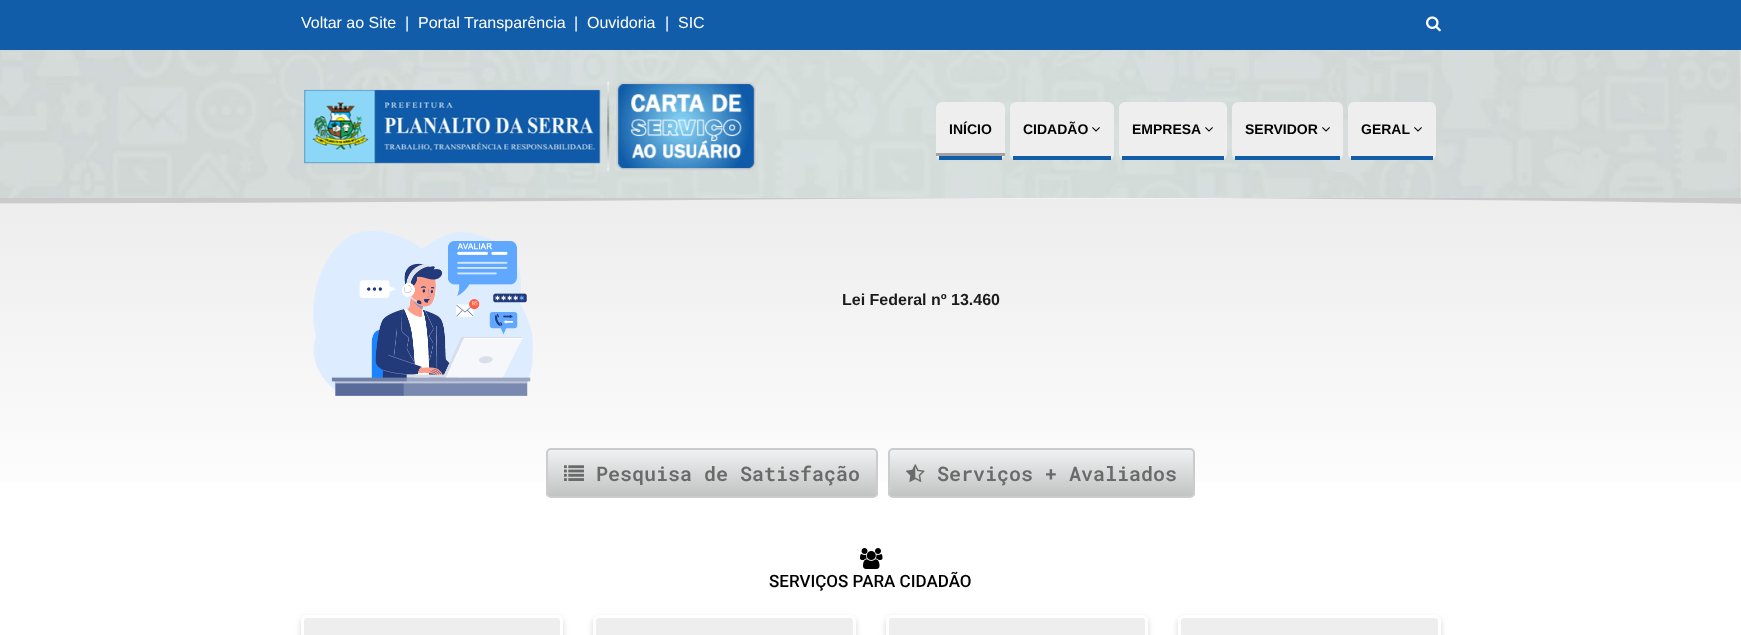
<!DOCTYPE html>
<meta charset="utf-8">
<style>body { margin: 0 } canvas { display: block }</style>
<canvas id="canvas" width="1741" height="635"></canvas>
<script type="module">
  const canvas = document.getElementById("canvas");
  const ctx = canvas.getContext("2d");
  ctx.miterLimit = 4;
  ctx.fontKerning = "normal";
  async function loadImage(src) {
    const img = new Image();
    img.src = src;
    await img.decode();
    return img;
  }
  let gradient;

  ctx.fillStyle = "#ffffff";
  ctx.fillRect(0, 0, 1741, 635);
  ctx.fillStyle = "#125da9";
  ctx.fillRect(0, 0, 1741, 50);
  ctx.font = "16px Liberation Sans";
  ctx.fillStyle = "#ffffff";
  ctx.fillText("Voltar ao Site", 301, 28);
  ctx.fillText("|", 405, 28);
  ctx.fillText("Portal Transparência", 418, 28);
  ctx.fillText("|", 574, 28);
  ctx.fillText("Ouvidoria", 587, 28);
  ctx.fillText("|", 665, 28);
  ctx.fillText("SIC", 678, 28);
  ctx.drawImage(await loadImage("img1.png"), 1426, 16, 15, 16);
  ctx.drawImage(await loadImage("img2.png"), 0, 50, 1741, 148);
  ctx.drawImage(await loadImage("img3.png"), 304, 81, 452, 90);
  ctx.fillStyle = "#eeeeee";
  ctx.beginPath();
  ctx.roundRect(936, 102, 69, 58, 6);
  ctx.fill();
  ctx.fillStyle = "#125da9";
  ctx.fillRect(939, 156, 63, 4);
  ctx.font = "bold 14px Liberation Sans";
  ctx.fillStyle = "#000000";
  ctx.fillText("INÍCIO", 949, 134);
  ctx.fillStyle = "#a3a3a3";
  ctx.fillRect(936, 153, 69, 3);
  ctx.fillStyle = "#eeeeee";
  ctx.beginPath();
  ctx.roundRect(1010, 102, 104, 58, 6);
  ctx.fill();
  ctx.fillStyle = "#125da9";
  ctx.fillRect(1013, 156, 98, 4);
  ctx.fillStyle = "#000000";
  ctx.fillText("CIDADÃO", 1023, 134);
  ctx.drawImage(await loadImage("img4.png"), 1092, 127, 8, 5);
  ctx.fillStyle = "#eeeeee";
  ctx.beginPath();
  ctx.roundRect(1119, 102, 108, 58, 6);
  ctx.fill();
  ctx.fillStyle = "#125da9";
  ctx.fillRect(1122, 156, 102, 4);
  ctx.fillStyle = "#000000";
  ctx.fillText("EMPRESA", 1132, 134);
  ctx.drawImage(await loadImage("img4.png"), 1205, 127, 8, 5);
  ctx.fillStyle = "#eeeeee";
  ctx.beginPath();
  ctx.roundRect(1232, 102, 111, 58, 6);
  ctx.fill();
  ctx.fillStyle = "#125da9";
  ctx.fillRect(1235, 156, 105, 4);
  ctx.fillStyle = "#000000";
  ctx.fillText("SERVIDOR", 1245, 134);
  ctx.drawImage(await loadImage("img4.png"), 1322, 127, 8, 5);
  ctx.fillStyle = "#eeeeee";
  ctx.beginPath();
  ctx.roundRect(1348, 102, 88, 58, 6);
  ctx.fill();
  ctx.fillStyle = "#125da9";
  ctx.fillRect(1351, 156, 82, 4);
  ctx.fillStyle = "#000000";
  ctx.fillText("GERAL", 1361, 134);
  ctx.drawImage(await loadImage("img4.png"), 1414, 127, 8, 5);
  gradient = ctx.createLinearGradient(871, 528, 871, 199);
  gradient.addColorStop(0, "#ffffff");
  gradient.addColorStop(1, "#ededed");
  ctx.fillStyle = gradient;
  ctx.fillRect(0, 199, 1741, 283);
  ctx.fillStyle = "#cacaca";
  ctx.beginPath();
  ctx.moveTo(820, 199);
  ctx.bezierCurveTo(524, 201, 227, 204, -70, 203);
  ctx.lineTo(-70, 198);
  ctx.lineTo(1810, 198);
  ctx.lineTo(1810, 205);
  ctx.bezierCurveTo(1518, 199, 1157, 197, 820, 199);
  ctx.closePath();
  ctx.fill();
  ctx.drawImage(await loadImage("img5.png"), 313, 231, 220, 165);
  ctx.font = "bold 16px Liberation Sans";
  ctx.fillStyle = "#1c1c1c";
  ctx.fillText("Lei Federal nº 13.460", 842, 305);
  ctx.save();
  ctx.beginPath();
  ctx.roundRect(546, 448, 332, 50, 5);
  ctx.clip();
  gradient = ctx.createLinearGradient(712, 450, 712, 496);
  gradient.addColorStop(0, "#eff1f2");
  gradient.addColorStop(1, "#c2c3c3");
  ctx.fillStyle = gradient;
  ctx.fillRect(546, 450, 332, 46);
  ctx.restore();
  ctx.beginPath();
  ctx.roundRect(547, 449, 330, 48, 4);
  ctx.strokeStyle = "#cccccc";
  ctx.lineWidth = 2;
  ctx.stroke();
  ctx.drawImage(await loadImage("img6.png"), 564, 465, 20, 16);
  ctx.font = "600 20px Roboto Mono";
  ctx.fillStyle = "#6a6a6a";
  ctx.fillText("Pesquisa de Satisfação", 596, 481);
  ctx.save();
  ctx.beginPath();
  ctx.roundRect(888, 448, 307, 50, 5);
  ctx.clip();
  gradient = ctx.createLinearGradient(1042, 450, 1042, 496);
  gradient.addColorStop(0, "#eff1f2");
  gradient.addColorStop(1, "#c2c3c3");
  ctx.fillStyle = gradient;
  ctx.fillRect(888, 450, 307, 46);
  ctx.restore();
  ctx.beginPath();
  ctx.roundRect(889, 449, 305, 48, 4);
  ctx.stroke();
  ctx.drawImage(await loadImage("img7.png"), 906, 464, 19, 18);
  ctx.fillText("Serviços + Avaliados", 937, 481);
  ctx.drawImage(await loadImage("img8.png"), 860, 548, 23, 21);
  ctx.font = "500 17px Roboto";
  ctx.fillStyle = "#000000";
  ctx.fillText("SERVIÇOS PARA CIDADÃO", 769, 587);
  ctx.fillStyle = "#d8d8d8";
  ctx.filter = "blur(3px)";
  ctx.beginPath();
  ctx.roundRect(301, 618, 262, 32, 6);
  ctx.fill();
  ctx.filter = "none";
  ctx.fillStyle = "#eeeeee";
  ctx.beginPath();
  ctx.roundRect(302.5, 616.5, 259, 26, 4.5);
  ctx.fill();
  ctx.strokeStyle = "#ffffff";
  ctx.lineWidth = 3;
  ctx.stroke();
  ctx.fillStyle = "#d8d8d8";
  ctx.filter = "blur(3px)";
  ctx.beginPath();
  ctx.roundRect(593, 618, 263, 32, 6);
  ctx.fill();
  ctx.filter = "none";
  ctx.fillStyle = "#eeeeee";
  ctx.beginPath();
  ctx.roundRect(594.5, 616.5, 260, 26, 4.5);
  ctx.fill();
  ctx.stroke();
  ctx.fillStyle = "#d8d8d8";
  ctx.filter = "blur(3px)";
  ctx.beginPath();
  ctx.roundRect(886, 618, 262, 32, 6);
  ctx.fill();
  ctx.filter = "none";
  ctx.fillStyle = "#eeeeee";
  ctx.beginPath();
  ctx.roundRect(887.5, 616.5, 259, 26, 4.5);
  ctx.fill();
  ctx.stroke();
  ctx.fillStyle = "#d8d8d8";
  ctx.filter = "blur(3px)";
  ctx.beginPath();
  ctx.roundRect(1178, 618, 263, 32, 6);
  ctx.fill();
  ctx.filter = "none";
  ctx.fillStyle = "#eeeeee";
  ctx.beginPath();
  ctx.roundRect(1179.5, 616.5, 260, 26, 4.5);
  ctx.fill();
  ctx.stroke();
</script>
